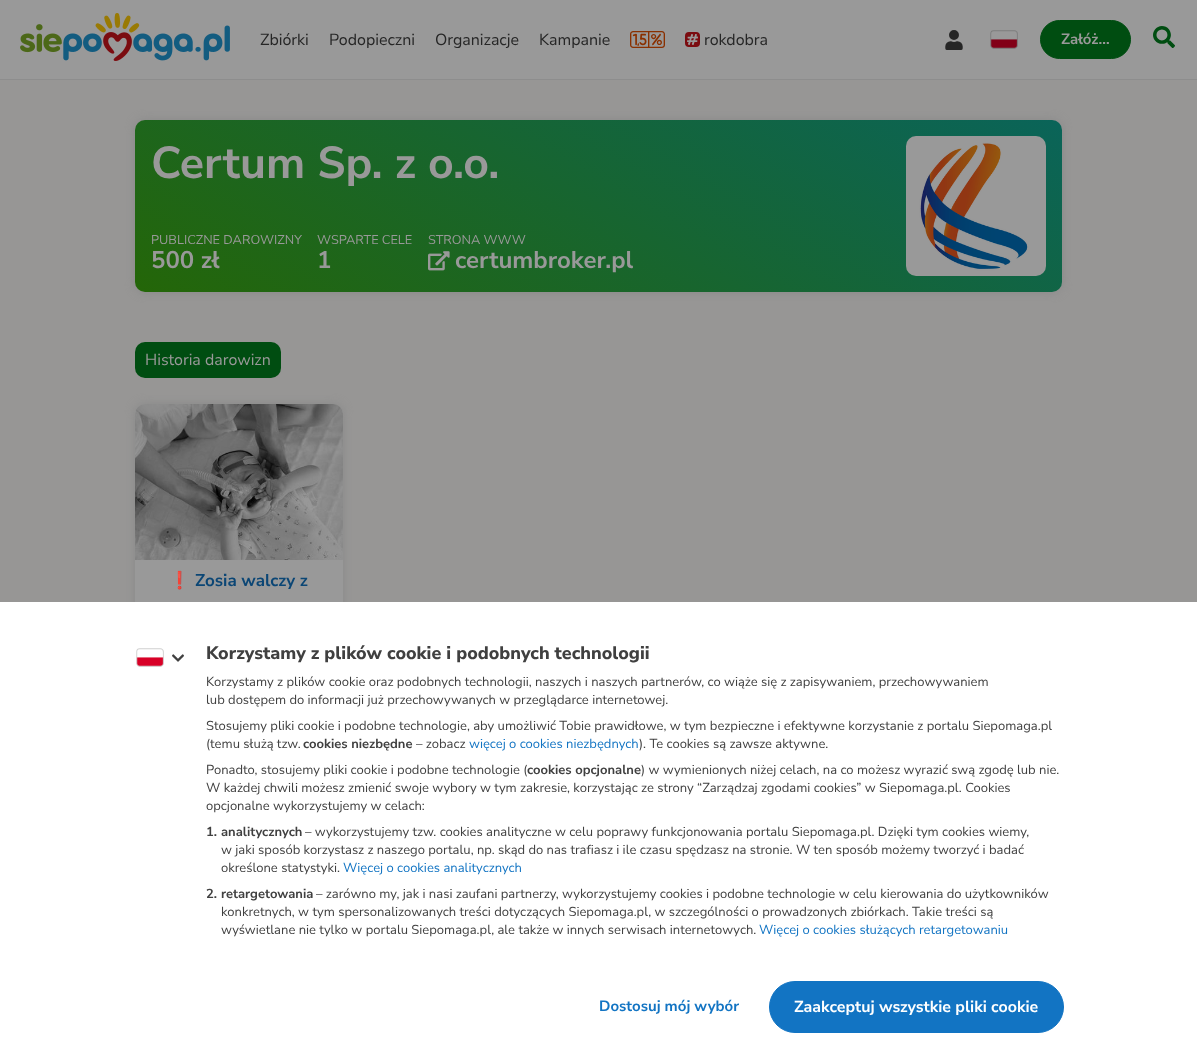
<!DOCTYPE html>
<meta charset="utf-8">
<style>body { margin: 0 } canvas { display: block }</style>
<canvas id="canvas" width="1197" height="1053"></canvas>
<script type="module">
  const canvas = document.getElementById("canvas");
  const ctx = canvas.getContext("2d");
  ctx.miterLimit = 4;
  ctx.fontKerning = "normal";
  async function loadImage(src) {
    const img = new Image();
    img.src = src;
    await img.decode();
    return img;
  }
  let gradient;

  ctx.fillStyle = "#979695";
  ctx.fillRect(0, 0, 1197, 1053);
  ctx.fillStyle = "#999999";
  ctx.fillRect(0, 0, 1197, 79);
  ctx.fillStyle = "#8d8d8d";
  ctx.fillRect(0, 79, 1197, 1);
  ctx.drawImage(await loadImage("img1.png"), 20, 13, 210, 48);
  ctx.font = "16px Nunito Sans";
  ctx.fillStyle = "#262626";
  ctx.fillText("Zbiórki", 260, 45);
  ctx.fillText("Podopieczni", 329, 45);
  ctx.fillText("Organizacje", 435, 45);
  ctx.fillText("Kampanie", 539, 45);
  ctx.drawImage(await loadImage("img2.png"), 630, 31, 35, 17);
  ctx.drawImage(await loadImage("img3.png"), 685, 32, 15, 15);
  ctx.fillText("rokdobra", 704, 45);
  ctx.drawImage(await loadImage("img4.png"), 945, 30, 18, 20);
  ctx.drawImage(await loadImage("img5.png"), 990, 30, 28, 19);
  ctx.fillStyle = "#004d11";
  ctx.beginPath();
  ctx.roundRect(1040.5, 20.5, 90, 38, 19);
  ctx.fill();
  ctx.strokeStyle = "#004d11";
  ctx.stroke();
  ctx.font = "bold 15px Nunito Sans";
  ctx.fillStyle = "#999999";
  ctx.fillText("Załóż…", 1061, 44);
  ctx.drawImage(await loadImage("img6.png"), 1153, 26, 22, 22);
  ctx.fillStyle = "#898989";
  ctx.filter = "blur(5px)";
  ctx.beginPath();
  ctx.roundRect(135, 120, 927, 172, 10);
  ctx.fill();
  ctx.filter = "none";
  gradient = ctx.createLinearGradient(445, 471, 752, -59);
  gradient.addColorStop(0, "#246608");
  gradient.addColorStop(1, "#0a6459");
  ctx.fillStyle = gradient;
  ctx.beginPath();
  ctx.roundRect(135, 120, 927, 172, 10);
  ctx.fill();
  ctx.font = "bold 44.75px Nunito Sans";
  ctx.fillStyle = "#999999";
  ctx.fillText("Certum Sp. z o.o.", 151, 178);
  ctx.font = "12.75px Nunito Sans";
  ctx.fillText("PUBLICZNE DAROWIZNY", 151, 244);
  ctx.font = "bold 24px Nunito Sans";
  ctx.fillText("500 zł", 151, 268);
  ctx.font = "12.75px Nunito Sans";
  ctx.fillText("WSPARTE CELE", 317, 244);
  ctx.font = "bold 24px Nunito Sans";
  ctx.fillText("1", 317, 268);
  ctx.font = "12.75px Nunito Sans";
  ctx.fillText("STRONA WWW", 428, 244);
  ctx.drawImage(await loadImage("img7.png"), 428, 251, 22, 20);
  ctx.font = "bold 24px Nunito Sans";
  ctx.fillText("certumbroker.pl", 455, 268);
  ctx.drawImage(await loadImage("img8.png"), 906, 136, 140, 140);
  ctx.fillStyle = "#004d11";
  ctx.beginPath();
  ctx.roundRect(135, 342, 146, 36, 10);
  ctx.fill();
  ctx.font = "16px Nunito Sans";
  ctx.fillStyle = "#999999";
  ctx.fillText("Historia darowizn", 145, 365);
  ctx.fillStyle = "#898989";
  ctx.filter = "blur(5px)";
  ctx.beginPath();
  ctx.roundRect(135, 404, 208, 327, 10);
  ctx.fill();
  ctx.filter = "none";
  ctx.fillStyle = "#999999";
  ctx.beginPath();
  ctx.roundRect(135, 404, 208, 327, 10);
  ctx.fill();
  ctx.drawImage(await loadImage("img9.png"), 135, 404, 208, 156);
  ctx.font = "bold 17px Noto Color Emoji";
  ctx.fillStyle = "#0b4675";
  ctx.fillText("❗️", 169, 586);
  ctx.font = "bold 17px Nunito Sans";
  ctx.fillText("Zosia walczy z", 195, 586);
  ctx.fillStyle = "#ffffff";
  ctx.fillRect(0, 602, 1197, 451);
  ctx.drawImage(await loadImage("img10.png"), 136, 648, 28, 19);
  ctx.drawImage(await loadImage("img11.png"), 172, 654, 12, 8);
  ctx.font = "800 18px Nunito Sans";
  ctx.fillStyle = "#404040";
  ctx.fillText("Korzystamy z plików cookie i podobnych technologii", 206, 659);
  ctx.font = "13px Nunito Sans";
  ctx.fillText("Korzystamy z plików cookie oraz podobnych technologii, naszych i naszych partnerów, co wiąże się z zapisywaniem, przechowywaniem", 206, 686);
  ctx.fillText("lub dostępem do informacji już przechowywanych w przeglądarce internetowej.", 206, 704);
  ctx.fillText("Stosujemy pliki cookie i podobne technologie, aby umożliwić Tobie prawidłowe, w tym bezpieczne i efektywne korzystanie z portalu Siepomaga.pl", 206, 730);
  ctx.fillText("(temu służą tzw.", 206, 748);
  ctx.font = "bold 13px Nunito Sans";
  ctx.fillText("cookies niezbędne", 303, 748);
  ctx.font = "13px Nunito Sans";
  ctx.fillText("– zobacz", 416, 748);
  ctx.fillStyle = "#1274c3";
  ctx.fillText("więcej o cookies niezbędnych", 469, 748);
  ctx.fillStyle = "#404040";
  ctx.fillText("). Te cookies są zawsze aktywne.", 639, 748);
  ctx.fillText("Ponadto, stosujemy pliki cookie i podobne technologie (", 206, 774);
  ctx.font = "bold 13px Nunito Sans";
  ctx.fillText("cookies opcjonalne", 527, 774);
  ctx.font = "13px Nunito Sans";
  ctx.fillText(") w wymienionych niżej celach, na co możesz wyrazić swą zgodę lub nie.", 641, 774);
  ctx.fillText("W każdej chwili możesz zmienić swoje wybory w tym zakresie, korzystając ze strony “Zarządzaj zgodami cookies” w Siepomaga.pl. Cookies", 206, 792);
  ctx.fillText("opcjonalne wykorzystujemy w celach:", 206, 810);
  ctx.font = "bold 13px Nunito Sans";
  ctx.fillText("1.", 206, 836);
  ctx.fillText("analitycznych", 221, 836);
  ctx.font = "13px Nunito Sans";
  ctx.fillText("– wykorzystujemy tzw. cookies analityczne w celu poprawy funkcjonowania portalu Siepomaga.pl. Dzięki tym cookies wiemy,", 305, 836);
  ctx.fillText("w jaki sposób korzystasz z naszego portalu, np. skąd do nas trafiasz i ile czasu spędzasz na stronie. W ten sposób możemy tworzyć i badać", 221, 854);
  ctx.fillText("określone statystyki.", 221, 872);
  ctx.fillStyle = "#1274c3";
  ctx.fillText("Więcej o cookies analitycznych", 343, 872);
  ctx.font = "bold 13px Nunito Sans";
  ctx.fillStyle = "#404040";
  ctx.fillText("2.", 206, 898);
  ctx.fillText("retargetowania", 221, 898);
  ctx.font = "13px Nunito Sans";
  ctx.fillText("– zarówno my, jak i nasi zaufani partnerzy, wykorzystujemy cookies i podobne technologie w celu kierowania do użytkowników", 316, 898);
  ctx.fillText("konkretnych, w tym spersonalizowanych treści dotyczących Siepomaga.pl, w szczególności o prowadzonych zbiórkach. Takie treści są", 221, 916);
  ctx.fillText("wyświetlane nie tylko w portalu Siepomaga.pl, ale także w innych serwisach internetowych.", 221, 934);
  ctx.fillStyle = "#1274c3";
  ctx.fillText("Więcej o cookies służących retargetowaniu", 759, 934);
  ctx.font = "bold 15px Nunito Sans";
  ctx.fillText("Dostosuj mój wybór", 599, 1011);
  ctx.beginPath();
  ctx.roundRect(769.5, 981.5, 294, 51, 25.5);
  ctx.fill();
  ctx.strokeStyle = "#1274c3";
  ctx.stroke();
  ctx.font = "bold 16px Nunito Sans";
  ctx.fillStyle = "#ffffff";
  ctx.fillText("Zaakceptuj wszystkie pliki cookie", 794, 1012);
</script>
